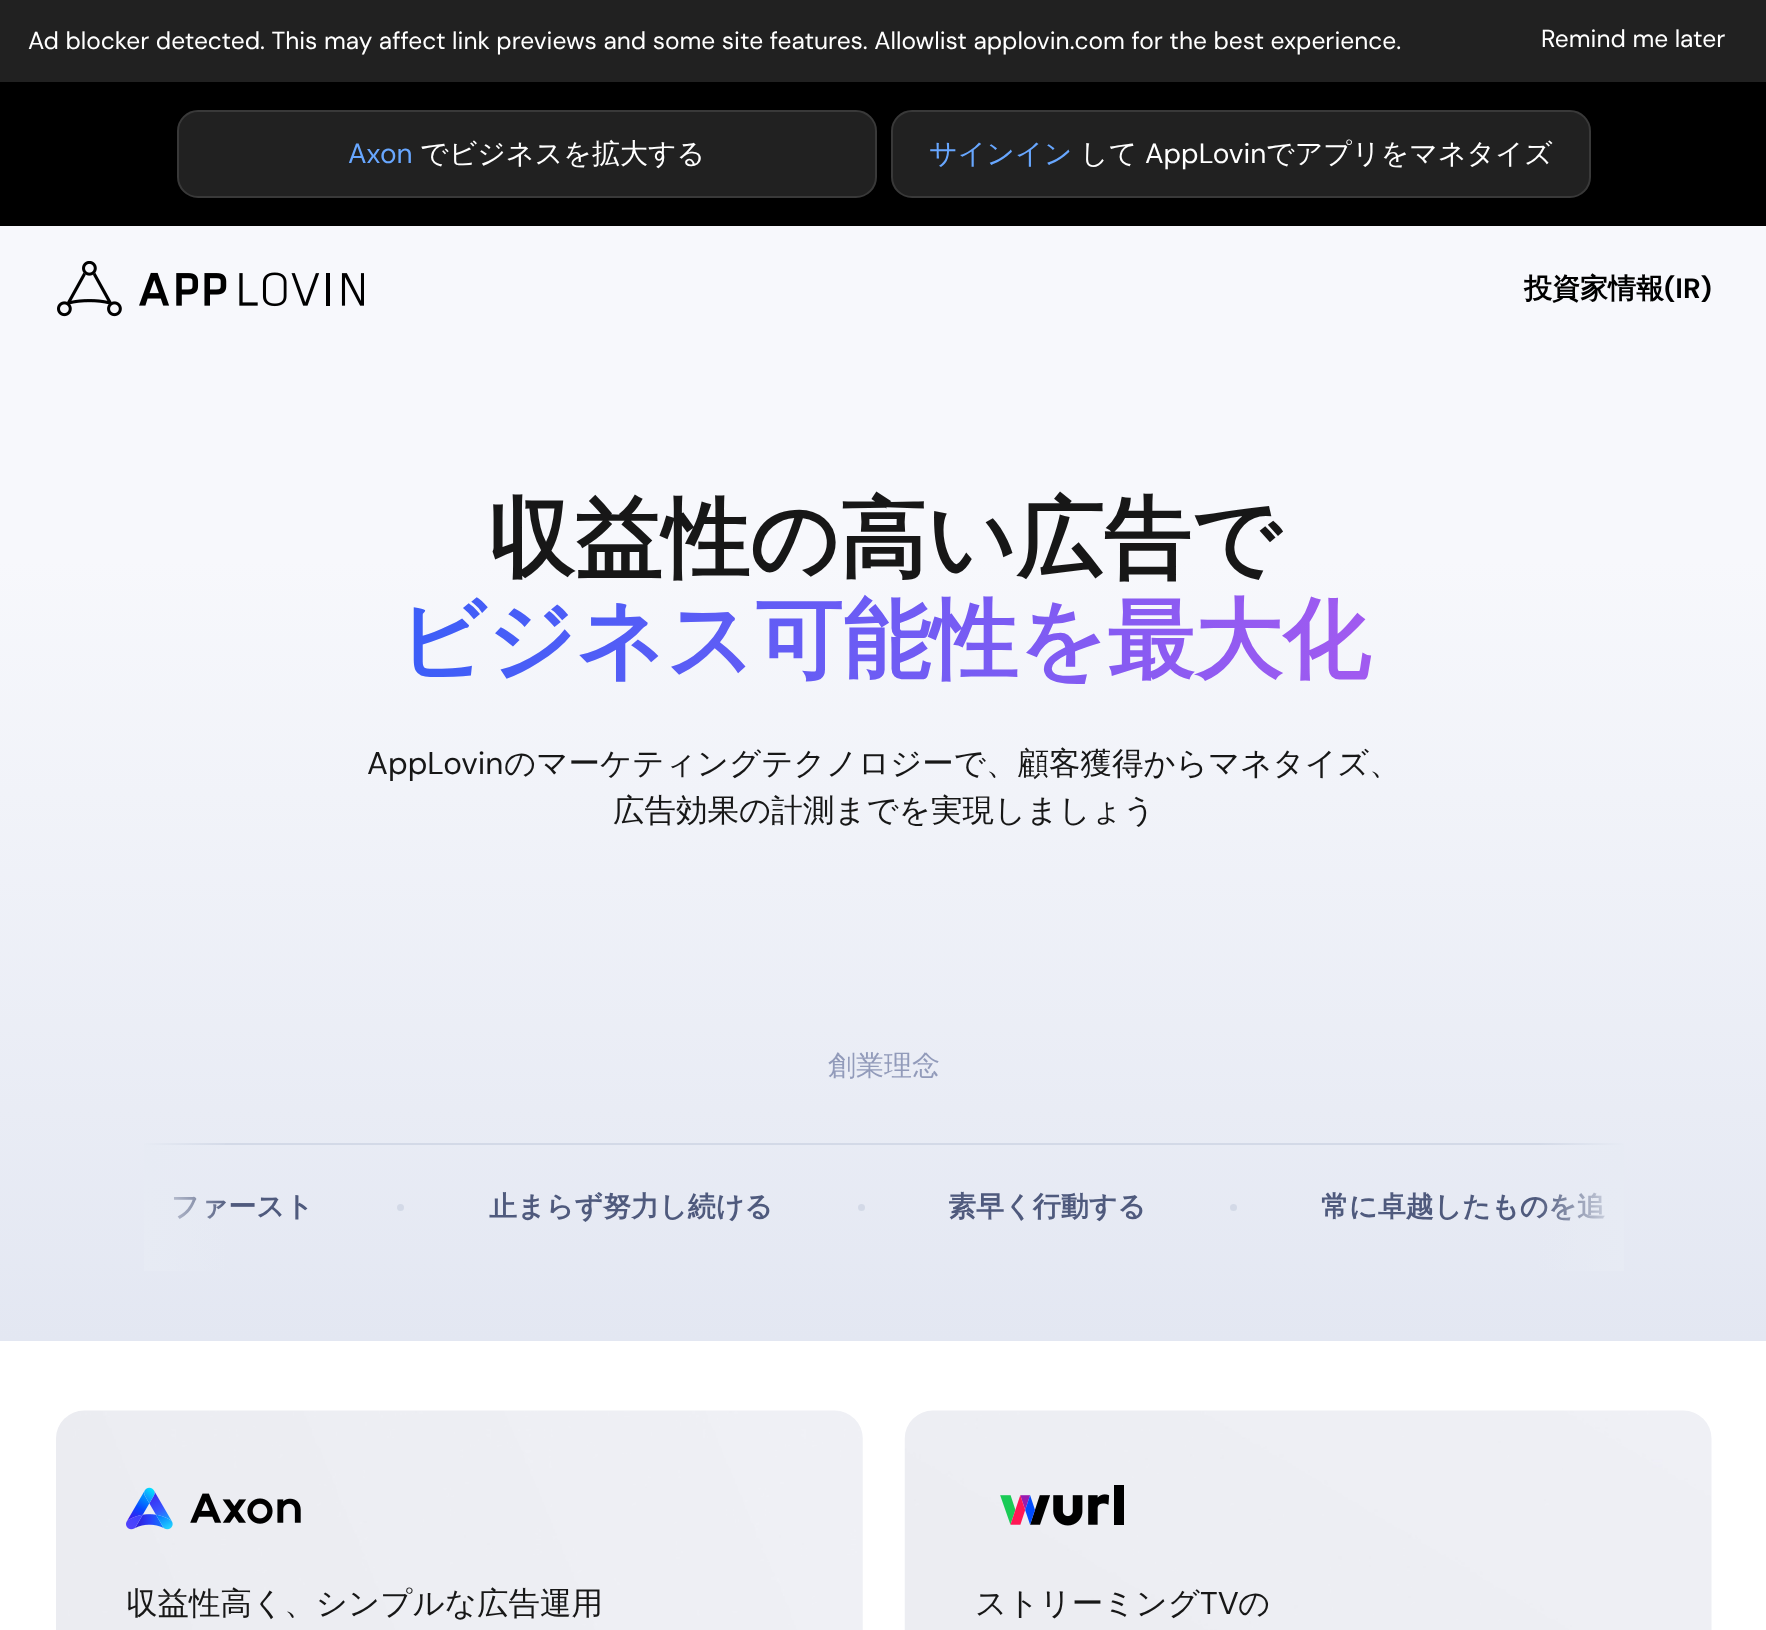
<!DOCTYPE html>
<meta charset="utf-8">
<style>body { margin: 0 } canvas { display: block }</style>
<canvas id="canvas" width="1766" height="1630"></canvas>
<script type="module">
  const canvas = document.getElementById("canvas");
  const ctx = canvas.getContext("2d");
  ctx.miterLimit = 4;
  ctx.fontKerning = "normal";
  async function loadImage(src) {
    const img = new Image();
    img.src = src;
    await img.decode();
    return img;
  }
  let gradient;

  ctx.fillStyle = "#ffffff";
  ctx.fillRect(0, 0, 1766, 1630);
  ctx.fillStyle = "#212121";
  ctx.fillRect(0, 0, 1766, 82);
  ctx.font = "24.5px DM Sans";
  ctx.fillStyle = "#ffffff";
  ctx.fillText("Ad blocker detected. This may affect link previews and some site features. Allowlist applovin.com for the best experience.", 28, 49);
  ctx.fillText("Remind me later", 1541, 47);
  ctx.fillStyle = "#000000";
  ctx.fillRect(0, 82, 1766, 144);
  ctx.fillStyle = "#212121";
  ctx.beginPath();
  ctx.roundRect(178, 111, 698, 86, 20);
  ctx.fill();
  ctx.strokeStyle = "#393939";
  ctx.lineWidth = 2;
  ctx.stroke();
  ctx.font = "28px DM Sans";
  ctx.fillStyle = "#68a7ff";
  ctx.fillText("Axon", 348, 163);
  ctx.font = "500 28px WenQuanYi Zen Hei";
  ctx.fillStyle = "#ffffff";
  ctx.fillText("でビジネスを拡大する", 420, 163);
  ctx.fillStyle = "#212121";
  ctx.beginPath();
  ctx.roundRect(892, 111, 698, 86, 20);
  ctx.fill();
  ctx.stroke();
  ctx.fillStyle = "#68a7ff";
  ctx.fillText("サインイン", 929, 163);
  ctx.fillStyle = "#ffffff";
  ctx.fillText("して", 1080, 163);
  ctx.font = "28px DM Sans";
  ctx.fillText("AppLovin", 1145, 163);
  ctx.font = "500 28px WenQuanYi Zen Hei";
  ctx.fillText("でアプリをマネタイズ", 1266, 163);
  gradient = ctx.createLinearGradient(884, 226, 884, 1341);
  gradient.addColorStop(0.3, "#f7f8fc");
  gradient.addColorStop(1, "#e3e7f2");
  ctx.fillStyle = gradient;
  ctx.fillRect(0, 226, 1766, 1115);
  ctx.drawImage(await loadImage("img1.png"), 57, 261, 307, 56);
  ctx.font = "bold 28px WenQuanYi Zen Hei";
  ctx.fillStyle = "#000000";
  ctx.fillText("投資家情報", 1524, 298);
  ctx.font = "bold 28px DM Sans";
  ctx.fillText("(IR)", 1664, 298);
  ctx.font = "bold 87.5px WenQuanYi Zen Hei";
  ctx.fillStyle = "#171717";
  ctx.fillText("収益性の高い広告で", 487, 569);
  gradient = ctx.createLinearGradient(397, 648, 1370, 648);
  gradient.addColorStop(0, "#3b5ef8");
  gradient.addColorStop(1, "#a15af0");
  ctx.fillStyle = gradient;
  ctx.fillText("ビジネス可能性を最大化", 397, 670);
  ctx.font = "31.5px DM Sans";
  ctx.fillStyle = "#171717";
  ctx.fillText("AppLovin", 367, 774);
  ctx.font = "500 31.5px WenQuanYi Zen Hei";
  ctx.fillText("のマーケティングテクノロジーで、顧客獲得からマネタイズ、", 504, 774);
  ctx.fillText("広告効果の計測までを実現しましょう", 613, 821);
  ctx.font = "500 28px WenQuanYi Zen Hei";
  ctx.fillStyle = "#929bba";
  ctx.fillText("創業理念", 828, 1075);
  ctx.fillStyle = "#d3d9e7";
  ctx.fillRect(144, 1143, 1480, 2);
  ctx.font = "bold 28px WenQuanYi Zen Hei";
  ctx.fillStyle = "#4f5a7d";
  ctx.fillText("ファースト", 171, 1216);
  gradient = ctx.createLinearGradient(56, 1207, 231, 1207);
  gradient.addColorStop(0, "#e7ebf4");
  gradient.addColorStop(0.5, "#e7ebf4");
  gradient.addColorStop(1, "rgba(231, 235, 244, 0)");
  ctx.fillStyle = gradient;
  ctx.fillRect(144, 1143, 81, 128);
  ctx.fillStyle = "#4f5a7d";
  ctx.fillText("常に卓越したものを追", 1321, 1216);
  gradient = ctx.createLinearGradient(1712, 1207, 1537, 1207);
  gradient.addColorStop(0, "#e7ebf4");
  gradient.addColorStop(0.5, "#e7ebf4");
  gradient.addColorStop(1, "rgba(231, 235, 244, 0)");
  ctx.fillStyle = gradient;
  ctx.fillRect(1539, 1143, 85, 128);
  ctx.fillStyle = "#d3d9e7";
  ctx.beginPath();
  ctx.arc(400.5, 1207.5, 3.5, 0, Math.PI * 2);
  ctx.fill();
  ctx.fillStyle = "#4f5a7d";
  ctx.fillText("止まらず努力し続ける", 489, 1216);
  ctx.fillStyle = "#d3d9e7";
  ctx.beginPath();
  ctx.arc(861.5, 1207.5, 3.5, 0, Math.PI * 2);
  ctx.fill();
  ctx.fillStyle = "#4f5a7d";
  ctx.fillText("素早く行動する", 948, 1216);
  ctx.fillStyle = "#d3d9e7";
  ctx.beginPath();
  ctx.arc(1233.5, 1207.5, 3.5, 0, Math.PI * 2);
  ctx.fill();
  ctx.drawImage(await loadImage("img2.png"), 56, 1410, 807, 220);
  ctx.drawImage(await loadImage("img3.png"), 126, 1487, 175, 43);
  ctx.font = "500 31.5px WenQuanYi Zen Hei";
  ctx.fillStyle = "#171717";
  ctx.fillText("収益性高く、シンプルな広告運用", 126, 1614);
  ctx.drawImage(await loadImage("img4.png"), 904, 1410, 808, 220);
  ctx.drawImage(await loadImage("img5.png"), 1000, 1485, 124, 41);
  ctx.fillText("ストリーミング", 975, 1614);
  ctx.font = "31.5px DM Sans";
  ctx.fillText("TV", 1200, 1614);
  ctx.font = "500 31.5px WenQuanYi Zen Hei";
  ctx.fillText("の", 1238, 1614);
</script>
